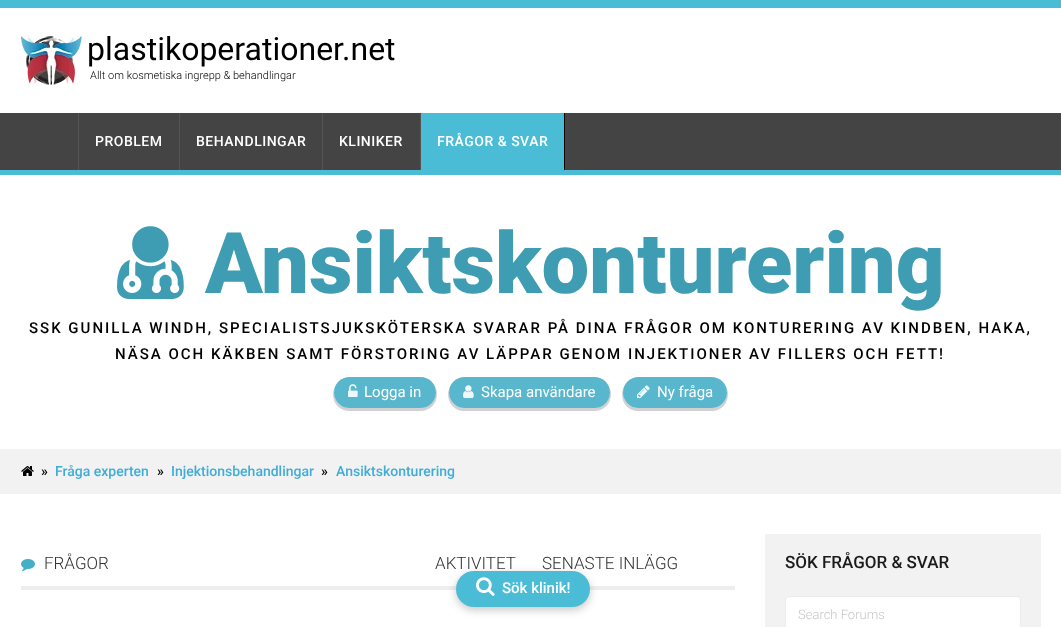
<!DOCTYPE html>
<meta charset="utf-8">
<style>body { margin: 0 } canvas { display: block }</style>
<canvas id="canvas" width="1061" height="627"></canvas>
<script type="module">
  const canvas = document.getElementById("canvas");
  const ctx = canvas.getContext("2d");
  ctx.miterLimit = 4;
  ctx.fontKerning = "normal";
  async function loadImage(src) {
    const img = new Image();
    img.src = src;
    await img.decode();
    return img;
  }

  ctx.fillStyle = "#ffffff";
  ctx.fillRect(0, 0, 1061, 627);
  ctx.fillStyle = "#4abcd6";
  ctx.fillRect(0, 0, 1061, 8);
  ctx.drawImage(await loadImage("img1.png"), 21, 36, 61, 49);
  ctx.font = "32px Roboto";
  ctx.fillStyle = "#000000";
  ctx.fillText("plastikoperationer.net", 87, 60);
  ctx.font = "300 11px Roboto";
  ctx.fillText("Allt om kosmetiska ingrepp & behandlingar", 90, 79);
  ctx.fillStyle = "#444444";
  ctx.fillRect(0, 113, 1061, 57);
  ctx.fillStyle = "#555555";
  ctx.fillRect(78, 113, 1, 57);
  ctx.fillRect(179, 113, 1, 57);
  ctx.letterSpacing = "0.5px";
  ctx.font = "500 14px Roboto";
  ctx.fillStyle = "#ffffff";
  ctx.fillText("PROBLEM", 95, 146);
  ctx.fillStyle = "#555555";
  ctx.fillRect(322, 113, 1, 57);
  ctx.fillStyle = "#ffffff";
  ctx.fillText("BEHANDLINGAR", 196, 146);
  ctx.fillStyle = "#555555";
  ctx.fillRect(420, 113, 1, 57);
  ctx.fillStyle = "#ffffff";
  ctx.fillText("KLINIKER", 339, 146);
  ctx.fillStyle = "#4abcd6";
  ctx.fillRect(421, 113, 143, 57);
  ctx.fillStyle = "#000000";
  ctx.fillRect(564, 113, 1, 57);
  ctx.fillStyle = "#ffffff";
  ctx.fillText("FRÅGOR & SVAR", 437, 146);
  ctx.fillStyle = "#4abcd6";
  ctx.fillRect(0, 170, 1061, 5);
  ctx.drawImage(await loadImage("img2.png"), 117, 226, 67, 74);
  ctx.letterSpacing = "0px";
  ctx.font = "900 85px Roboto";
  ctx.fillStyle = "#3e9db2";
  ctx.fillText("Ansiktskonturering", 205, 293);
  ctx.letterSpacing = "2px";
  ctx.font = "500 15px Roboto";
  ctx.fillStyle = "#000000";
  ctx.fillText("SSK GUNILLA WINDH, SPECIALISTSJUKSKÖTERSKA SVARAR PÅ DINA FRÅGOR OM KONTURERING AV KINDBEN, HAKA,", 29, 333);
  ctx.fillText("NÄSA OCH KÄKBEN SAMT FÖRSTORING AV LÄPPAR GENOM INJEKTIONER AV FILLERS OCH FETT!", 115, 359);
  ctx.fillStyle = "#d1d1d1";
  ctx.beginPath();
  ctx.moveTo(336, 386);
  ctx.bezierCurveTo(334, 388, 333, 391, 333, 394);
  ctx.bezierCurveTo(333, 404, 340, 411, 350, 411);
  ctx.lineTo(420, 411);
  ctx.bezierCurveTo(430, 411, 437, 404, 437, 394);
  ctx.bezierCurveTo(437, 391, 436, 388, 434, 386);
  ctx.bezierCurveTo(435, 388, 436, 390, 436, 392);
  ctx.bezierCurveTo(436, 401, 429, 408, 420, 408);
  ctx.lineTo(350, 408);
  ctx.bezierCurveTo(341, 408, 334, 401, 334, 392);
  ctx.bezierCurveTo(334, 390, 335, 388, 336, 386);
  ctx.closePath();
  ctx.fill();
  ctx.fillStyle = "#58b7cd";
  ctx.beginPath();
  ctx.roundRect(334, 377, 102, 31, 15.5);
  ctx.fill();
  ctx.drawImage(await loadImage("img3.png"), 348, 384, 10, 13);
  ctx.letterSpacing = "0px";
  ctx.font = "15px Roboto";
  ctx.fillStyle = "#ffffff";
  ctx.fillText("Logga in", 364, 397);
  ctx.fillStyle = "#d1d1d1";
  ctx.beginPath();
  ctx.moveTo(451, 386);
  ctx.bezierCurveTo(449, 388, 448, 391, 448, 394);
  ctx.bezierCurveTo(448, 404, 455, 411, 464, 411);
  ctx.lineTo(594, 411);
  ctx.bezierCurveTo(604, 411, 611, 404, 611, 394);
  ctx.bezierCurveTo(611, 391, 610, 388, 608, 386);
  ctx.bezierCurveTo(609, 388, 610, 390, 610, 392);
  ctx.bezierCurveTo(610, 401, 603, 408, 594, 408);
  ctx.lineTo(464, 408);
  ctx.bezierCurveTo(456, 408, 449, 401, 449, 392);
  ctx.bezierCurveTo(449, 390, 450, 388, 451, 386);
  ctx.closePath();
  ctx.fill();
  ctx.fillStyle = "#58b7cd";
  ctx.beginPath();
  ctx.roundRect(449, 377, 161, 31, 15.5);
  ctx.fill();
  ctx.drawImage(await loadImage("img4.png"), 463, 385, 11, 14);
  ctx.fillStyle = "#ffffff";
  ctx.fillText("Skapa användare", 481, 397);
  ctx.fillStyle = "#d1d1d1";
  ctx.beginPath();
  ctx.moveTo(625, 386);
  ctx.bezierCurveTo(623, 388, 622, 391, 622, 394);
  ctx.bezierCurveTo(622, 404, 629, 411, 638, 411);
  ctx.lineTo(712, 411);
  ctx.bezierCurveTo(721, 411, 728, 404, 728, 394);
  ctx.bezierCurveTo(728, 391, 727, 388, 725, 386);
  ctx.bezierCurveTo(726, 388, 727, 390, 727, 392);
  ctx.bezierCurveTo(727, 401, 720, 408, 712, 408);
  ctx.lineTo(638, 408);
  ctx.bezierCurveTo(630, 408, 623, 401, 623, 392);
  ctx.bezierCurveTo(623, 390, 624, 388, 625, 386);
  ctx.closePath();
  ctx.fill();
  ctx.fillStyle = "#58b7cd";
  ctx.beginPath();
  ctx.roundRect(623, 377, 104, 31, 15.5);
  ctx.fill();
  ctx.drawImage(await loadImage("img5.png"), 637, 385, 13, 14);
  ctx.fillStyle = "#ffffff";
  ctx.fillText("Ny fråga", 657, 397);
  ctx.fillStyle = "#f2f2f2";
  ctx.fillRect(0, 449, 1061, 45);
  ctx.drawImage(await loadImage("img6.png"), 21, 466, 13, 10);
  ctx.font = "500 14px Roboto";
  ctx.fillStyle = "#000000";
  ctx.fillText("»", 41, 476);
  ctx.fillStyle = "#41add6";
  ctx.fillText("Fråga experten", 55, 476);
  ctx.fillStyle = "#000000";
  ctx.fillText("»", 157, 476);
  ctx.fillStyle = "#41add6";
  ctx.fillText("Injektionsbehandlingar", 171, 476);
  ctx.fillStyle = "#000000";
  ctx.fillText("»", 321, 476);
  ctx.fillStyle = "#41add6";
  ctx.fillText("Ansiktskonturering", 336, 476);
  ctx.fillStyle = "#eeeeee";
  ctx.fillRect(21, 586, 714, 4);
  ctx.drawImage(await loadImage("img7.png"), 21, 559, 14, 12);
  ctx.font = "300 17px Roboto";
  ctx.fillStyle = "#333333";
  ctx.fillText("FRÅGOR", 44, 569);
  ctx.fillText("AKTIVITET", 435, 569);
  ctx.fillText("SENASTE INLÄGG", 542, 569);
  ctx.fillStyle = "#f2f2f2";
  ctx.fillRect(765, 534, 276, 93);
  ctx.font = "500 17px Roboto";
  ctx.fillStyle = "#1a1a1a";
  ctx.fillText("SÖK FRÅGOR & SVAR", 785, 568);
  ctx.fillStyle = "#ffffff";
  ctx.beginPath();
  ctx.roundRect(785.5, 596.5, 235, 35, 3.5);
  ctx.fill();
  ctx.strokeStyle = "#ebebeb";
  ctx.stroke();
  ctx.font = "300 13px Roboto";
  ctx.fillStyle = "#c7c7c7";
  ctx.fillText("Search Forums", 798, 619);
  ctx.fillStyle = "rgba(0, 0, 0, 0.22)";
  ctx.filter = "blur(4px)";
  ctx.beginPath();
  ctx.roundRect(456, 574, 134, 36, 18);
  ctx.fill();
  ctx.filter = "none";
  ctx.fillStyle = "#4abcd6";
  ctx.beginPath();
  ctx.roundRect(456, 571, 134, 36, 18);
  ctx.fill();
  ctx.drawImage(await loadImage("img8.png"), 476, 577, 19, 19);
  ctx.font = "500 15px Roboto";
  ctx.fillStyle = "#ffffff";
  ctx.fillText("Sök klinik!", 502, 593);
</script>
